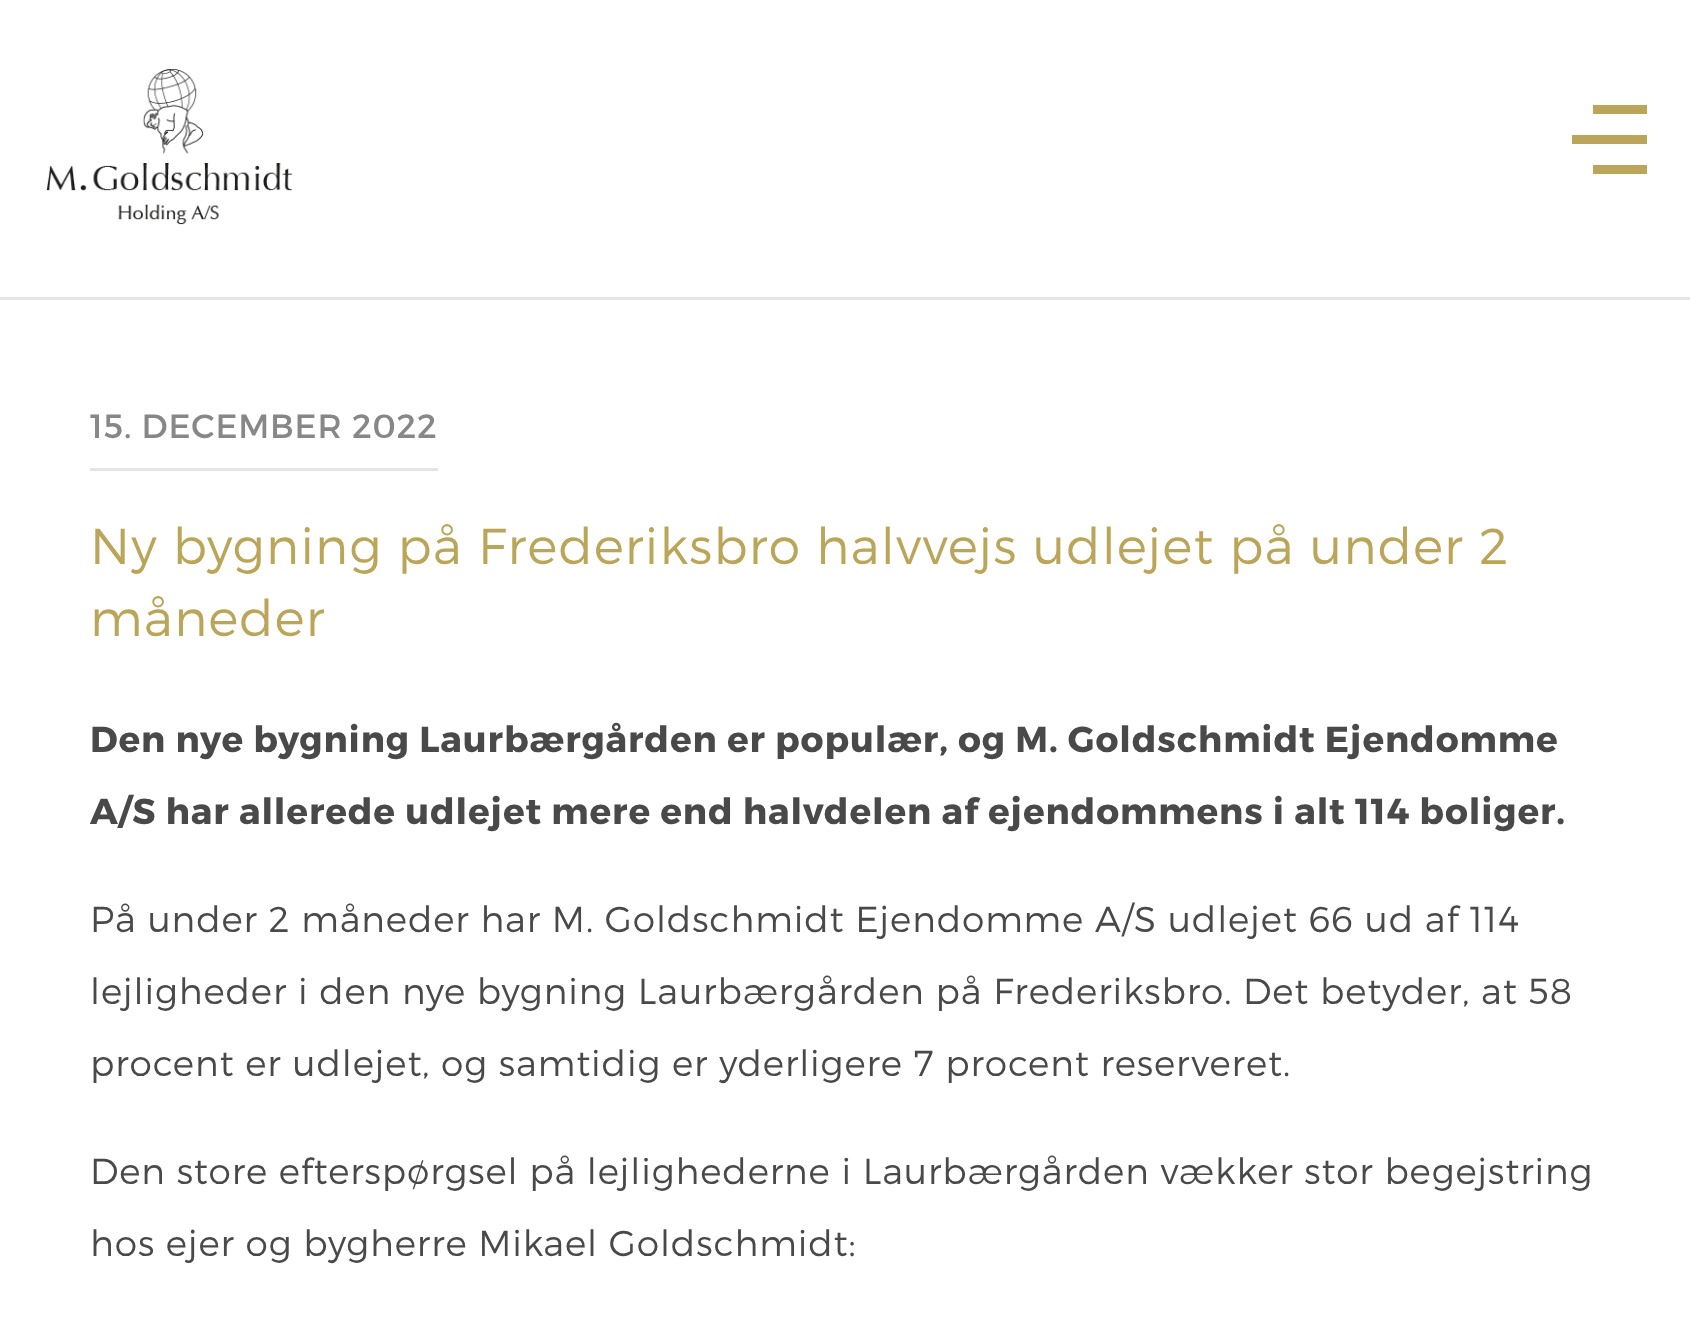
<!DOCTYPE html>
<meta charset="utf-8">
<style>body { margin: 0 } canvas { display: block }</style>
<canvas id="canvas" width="1690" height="1321"></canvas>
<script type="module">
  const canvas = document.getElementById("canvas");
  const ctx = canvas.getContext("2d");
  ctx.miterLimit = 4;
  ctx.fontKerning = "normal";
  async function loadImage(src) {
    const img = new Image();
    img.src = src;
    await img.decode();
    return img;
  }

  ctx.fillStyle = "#ffffff";
  ctx.fillRect(0, 0, 1690, 1321);
  ctx.fillStyle = "#e5e5e5";
  ctx.fillRect(0, 297, 1690, 3);
  ctx.drawImage(await loadImage("img1.png"), 46, 69, 247, 156);
  ctx.fillStyle = "#baa558";
  ctx.fillRect(1593, 105, 54, 9);
  ctx.fillRect(1572, 135, 75, 9);
  ctx.fillRect(1593, 165, 54, 9);
  ctx.letterSpacing = "0.8px";
  ctx.font = "33.6px Montserrat";
  ctx.fillStyle = "#878787";
  ctx.fillText("15. DECEMBER 2022", 90, 438);
  ctx.fillStyle = "#e5e5e5";
  ctx.fillRect(90, 468, 348, 3);
  ctx.letterSpacing = "1.25px";
  ctx.wordSpacing = "-0.25px";
  ctx.font = "300 50.4px Montserrat";
  ctx.fillStyle = "#baa558";
  ctx.fillText("Ny bygning på Frederiksbro halvvejs udlejet på under 2", 90, 564);
  ctx.wordSpacing = "0px";
  ctx.fillText("måneder", 90, 636);
  ctx.letterSpacing = "0.9px";
  ctx.font = "bold 36px Montserrat";
  ctx.fillStyle = "#494949";
  ctx.fillText("Den nye bygning Laurbærgården er populær, og M. Goldschmidt Ejendomme", 90, 752);
  ctx.fillText("A/S har allerede udlejet mere end halvdelen af ejendommens i alt 114 boliger.", 90, 824);
  ctx.font = "300 36px Montserrat";
  ctx.fillText("På under 2 måneder har M. Goldschmidt Ejendomme A/S udlejet 66 ud af 114", 90, 932);
  ctx.fillText("lejligheder i den nye bygning Laurbærgården på Frederiksbro. Det betyder, at 58", 90, 1004);
  ctx.fillText("procent er udlejet, og samtidig er yderligere 7 procent reserveret.", 90, 1076);
  ctx.fillText("Den store efterspørgsel på lejlighederne i Laurbærgården vækker stor begejstring", 90, 1184);
  ctx.fillText("hos ejer og bygherre Mikael Goldschmidt:", 90, 1256);
</script>
